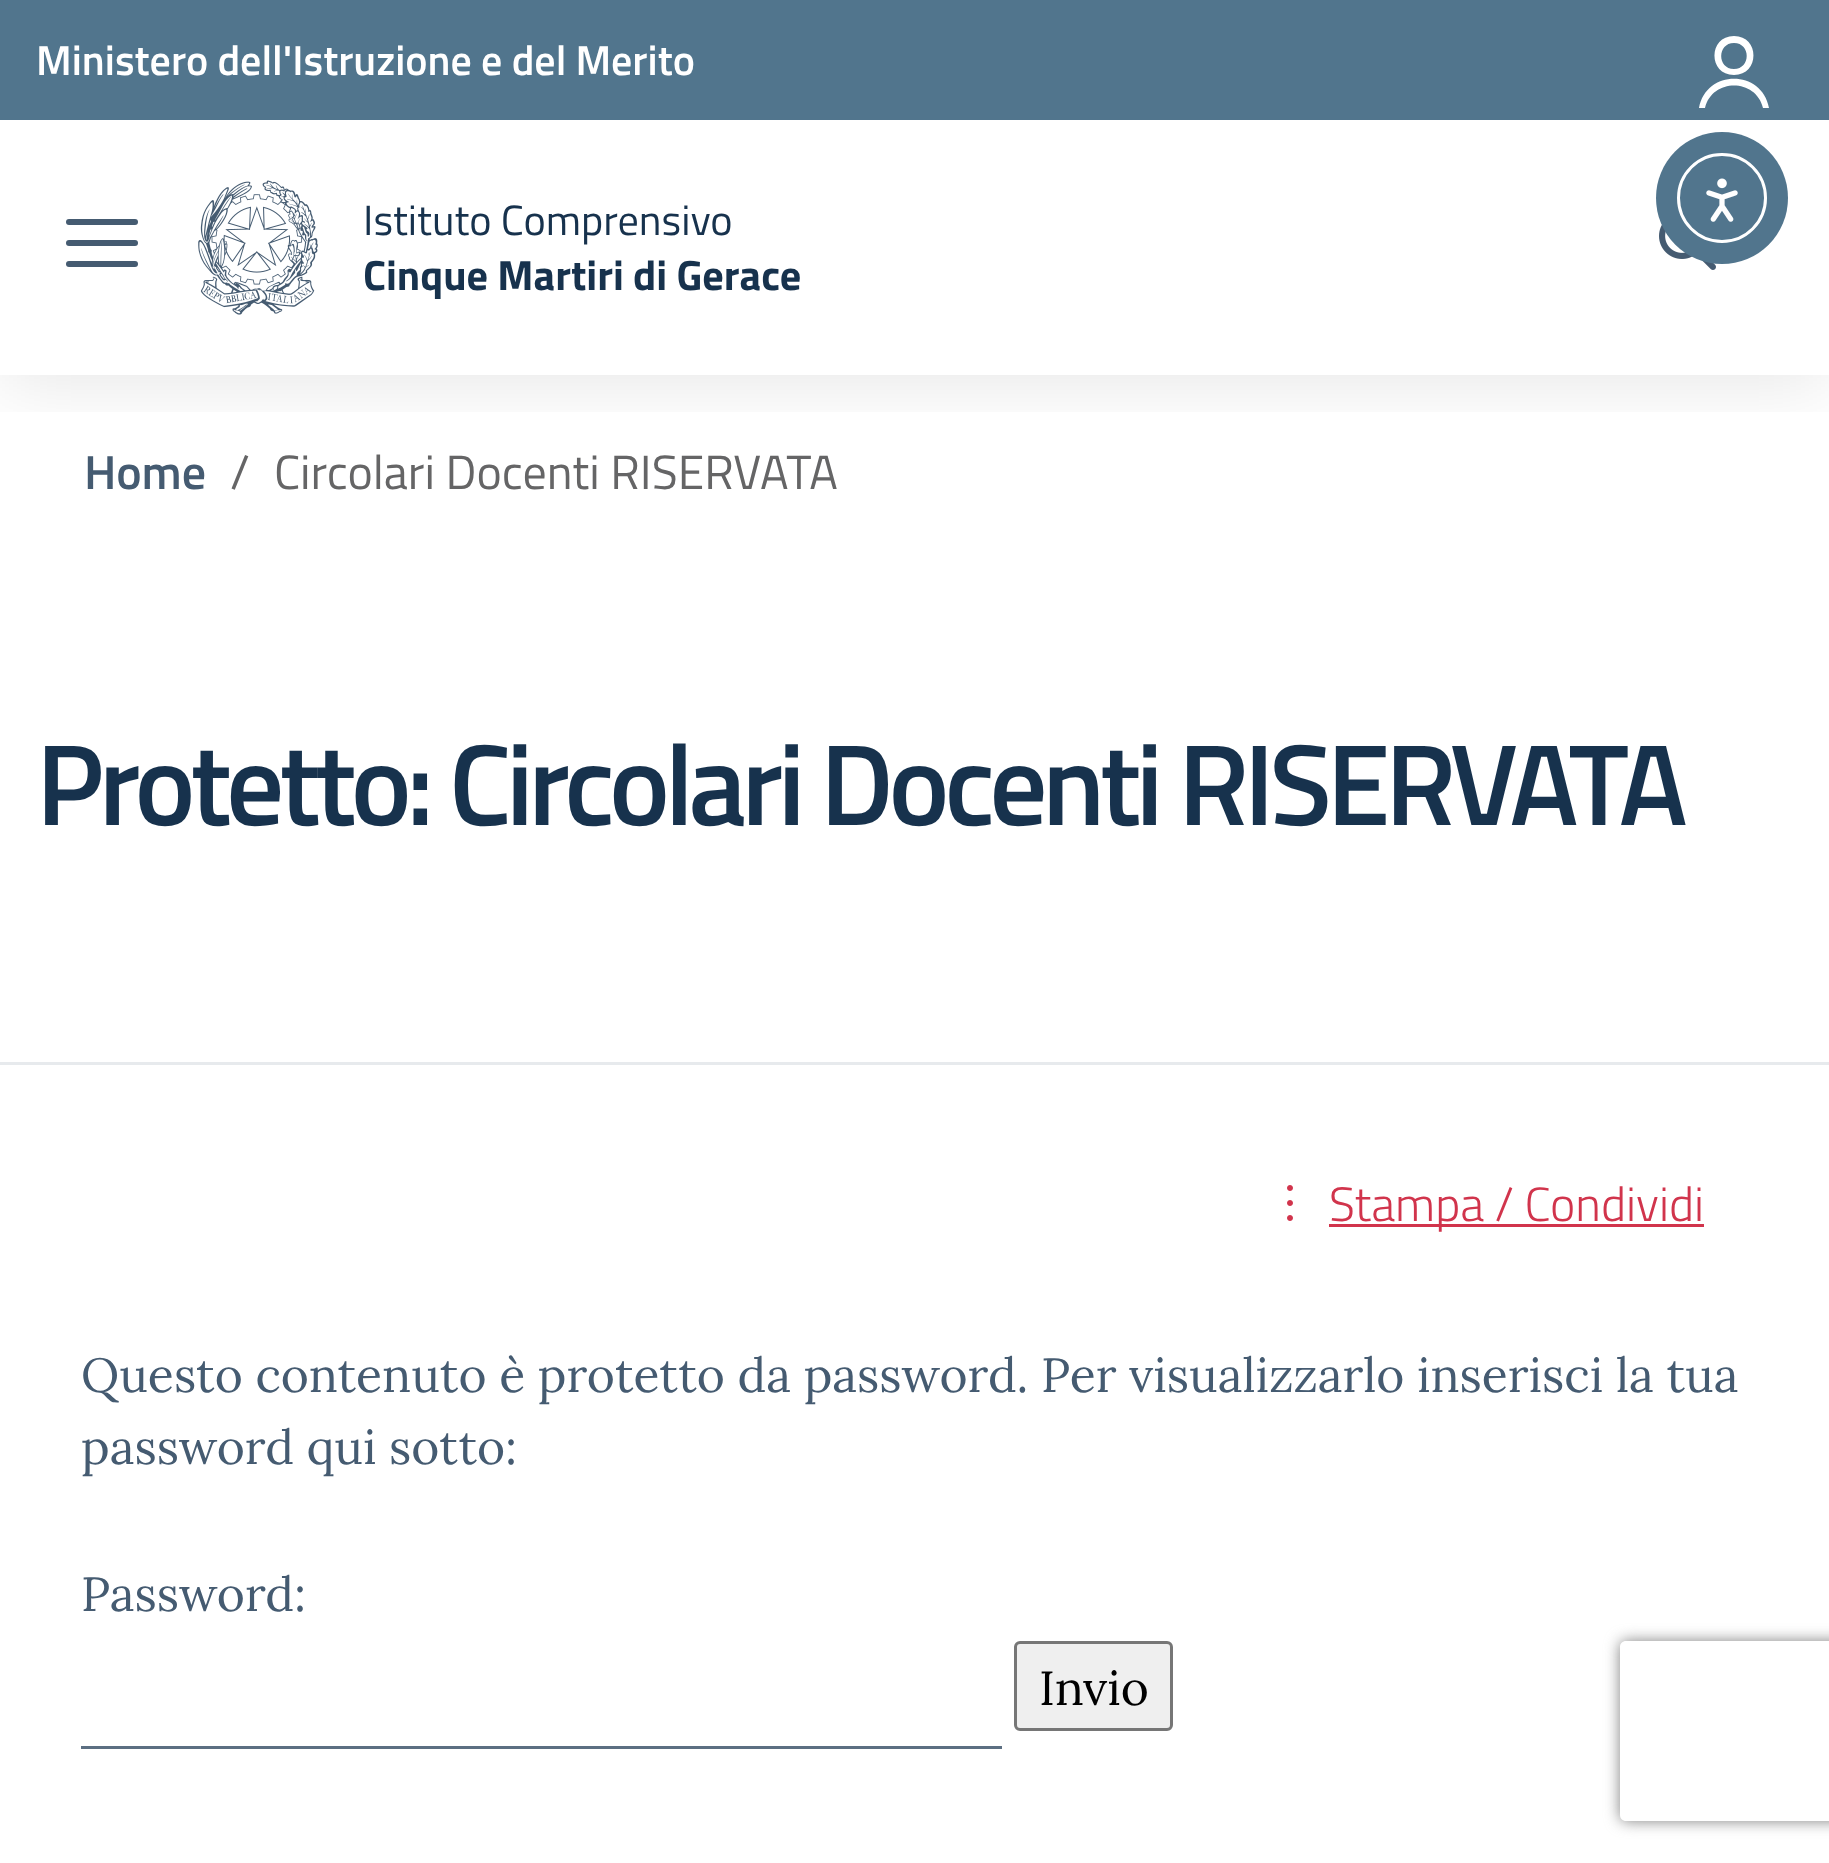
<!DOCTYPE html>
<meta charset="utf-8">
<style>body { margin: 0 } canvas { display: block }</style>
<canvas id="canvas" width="1829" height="1863"></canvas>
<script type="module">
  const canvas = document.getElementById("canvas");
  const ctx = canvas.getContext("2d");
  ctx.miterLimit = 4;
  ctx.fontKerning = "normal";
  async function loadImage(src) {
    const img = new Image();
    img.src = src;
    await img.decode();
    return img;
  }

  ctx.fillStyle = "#ffffff";
  ctx.fillRect(0, 0, 1829, 1863);
  ctx.save();
  ctx.beginPath();
  ctx.rect(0, 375, 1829, 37);
  ctx.clip();
  ctx.fillStyle = "rgba(0, 0, 0, 0.1)";
  ctx.filter = "blur(37px)";
  ctx.beginPath();
  ctx.rect(0, 6, 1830, 375);
  ctx.fill();
  ctx.filter = "none";
  ctx.restore();
  ctx.fillStyle = "#51758d";
  ctx.fillRect(0, 0, 1829, 120);
  ctx.font = "600 42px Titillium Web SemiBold";
  ctx.fillStyle = "#ffffff";
  ctx.fillText("Ministero dell'Istruzione e del Merito", 36, 75);
  ctx.beginPath();
  ctx.moveTo(1705, 108);
  ctx.lineTo(1699, 108);
  ctx.bezierCurveTo(1706, 69, 1762, 69, 1769, 108);
  ctx.lineTo(1763, 108);
  ctx.bezierCurveTo(1756, 78, 1712, 78, 1705, 108);
  ctx.closePath();
  ctx.moveTo(1734, 75);
  ctx.bezierCurveTo(1760, 75, 1760, 36, 1734, 36);
  ctx.bezierCurveTo(1708, 36, 1708, 75, 1734, 75);
  ctx.closePath();
  ctx.moveTo(1734, 69);
  ctx.bezierCurveTo(1717, 69, 1717, 43, 1734, 43);
  ctx.bezierCurveTo(1751, 43, 1751, 69, 1734, 69);
  ctx.closePath();
  ctx.fill();
  ctx.fillStyle = "#455b71";
  ctx.beginPath();
  ctx.roundRect(66, 240, 72, 6, 3);
  ctx.fill();
  ctx.beginPath();
  ctx.roundRect(66, 219, 72, 6, 3);
  ctx.fill();
  ctx.beginPath();
  ctx.roundRect(66, 261, 72, 6, 3);
  ctx.fill();
  ctx.drawImage(await loadImage("img1.png"), 198, 180, 120, 135);
  ctx.font = "42.25px Titillium Web";
  ctx.fillStyle = "#17324d";
  ctx.fillText("Istituto Comprensivo", 363, 235);
  ctx.font = "bold 42.25px Titillium Web";
  ctx.fillText("Cinque Martiri di Gerace", 363, 290);
  ctx.drawImage(await loadImage("img2.png"), 1659, 224, 57, 46);
  ctx.font = "600 48px Titillium Web SemiBold";
  ctx.fillStyle = "#455b71";
  ctx.fillText("Home", 84, 489);
  ctx.font = "48px Titillium Web";
  ctx.fillStyle = "#656566";
  ctx.fillText("/", 230, 489);
  ctx.fillText("Circolari Docenti RISERVATA", 274, 489);
  ctx.letterSpacing = "-5.4px";
  ctx.font = "600 115.25px Titillium Web SemiBold";
  ctx.fillStyle = "#17324d";
  ctx.fillText("Protetto: Circolari Docenti RISERVATA", 36, 825);
  ctx.fillStyle = "#e7eaed";
  ctx.fillRect(0, 1062, 1829, 3);
  ctx.drawImage(await loadImage("img3.png"), 1287, 1185, 6, 36);
  ctx.fillStyle = "#d1344c";
  ctx.fillRect(1329, 1224, 375, 3);
  ctx.letterSpacing = "0px";
  ctx.font = "300 48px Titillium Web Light";
  ctx.fillText("Stampa / Condividi", 1329, 1221);
  ctx.font = "48px Lora";
  ctx.fillStyle = "#455b71";
  ctx.fillText("Questo contenuto è protetto da password. Per visualizzarlo inserisci la tua", 81, 1392);
  ctx.fillText("password qui sotto:", 81, 1464);
  ctx.fillText("Password:", 81, 1611);
  ctx.fillStyle = "#5c6f82";
  ctx.fillRect(81, 1746, 921, 3);
  ctx.fillStyle = "#efefef";
  ctx.beginPath();
  ctx.roundRect(1015.5, 1642.5, 156, 87, 4.5);
  ctx.fill();
  ctx.strokeStyle = "#767676";
  ctx.lineWidth = 3;
  ctx.stroke();
  ctx.fillStyle = "#000000";
  ctx.fillText("Invio", 1039, 1705);
  ctx.fillStyle = "#51758d";
  ctx.beginPath();
  ctx.arc(1722, 198, 66, 0, Math.PI * 2);
  ctx.fill();
  ctx.beginPath();
  ctx.arc(1722, 198, 43.5, 0, Math.PI * 2);
  ctx.strokeStyle = "#ffffff";
  ctx.stroke();
  ctx.drawImage(await loadImage("img4.png"), 1706, 178, 32, 44);
  ctx.save();
  ctx.beginPath();
  ctx.moveTo(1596, 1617);
  ctx.lineTo(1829, 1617);
  ctx.lineTo(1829, 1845);
  ctx.lineTo(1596, 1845);
  ctx.closePath();
  ctx.moveTo(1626, 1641);
  ctx.lineTo(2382, 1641);
  ctx.bezierCurveTo(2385.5, 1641, 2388, 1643.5, 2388, 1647);
  ctx.lineTo(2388, 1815);
  ctx.bezierCurveTo(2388, 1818.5, 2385.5, 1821, 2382, 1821);
  ctx.lineTo(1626, 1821);
  ctx.bezierCurveTo(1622.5, 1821, 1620, 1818.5, 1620, 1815);
  ctx.lineTo(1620, 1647);
  ctx.bezierCurveTo(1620, 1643.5, 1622.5, 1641, 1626, 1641);
  ctx.closePath();
  ctx.clip("evenodd");
  ctx.fillStyle = "#808080";
  ctx.filter = "blur(7.5px)";
  ctx.beginPath();
  ctx.roundRect(1620, 1641, 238, 180, 6);
  ctx.fill();
  ctx.filter = "none";
  ctx.restore();
</script>
